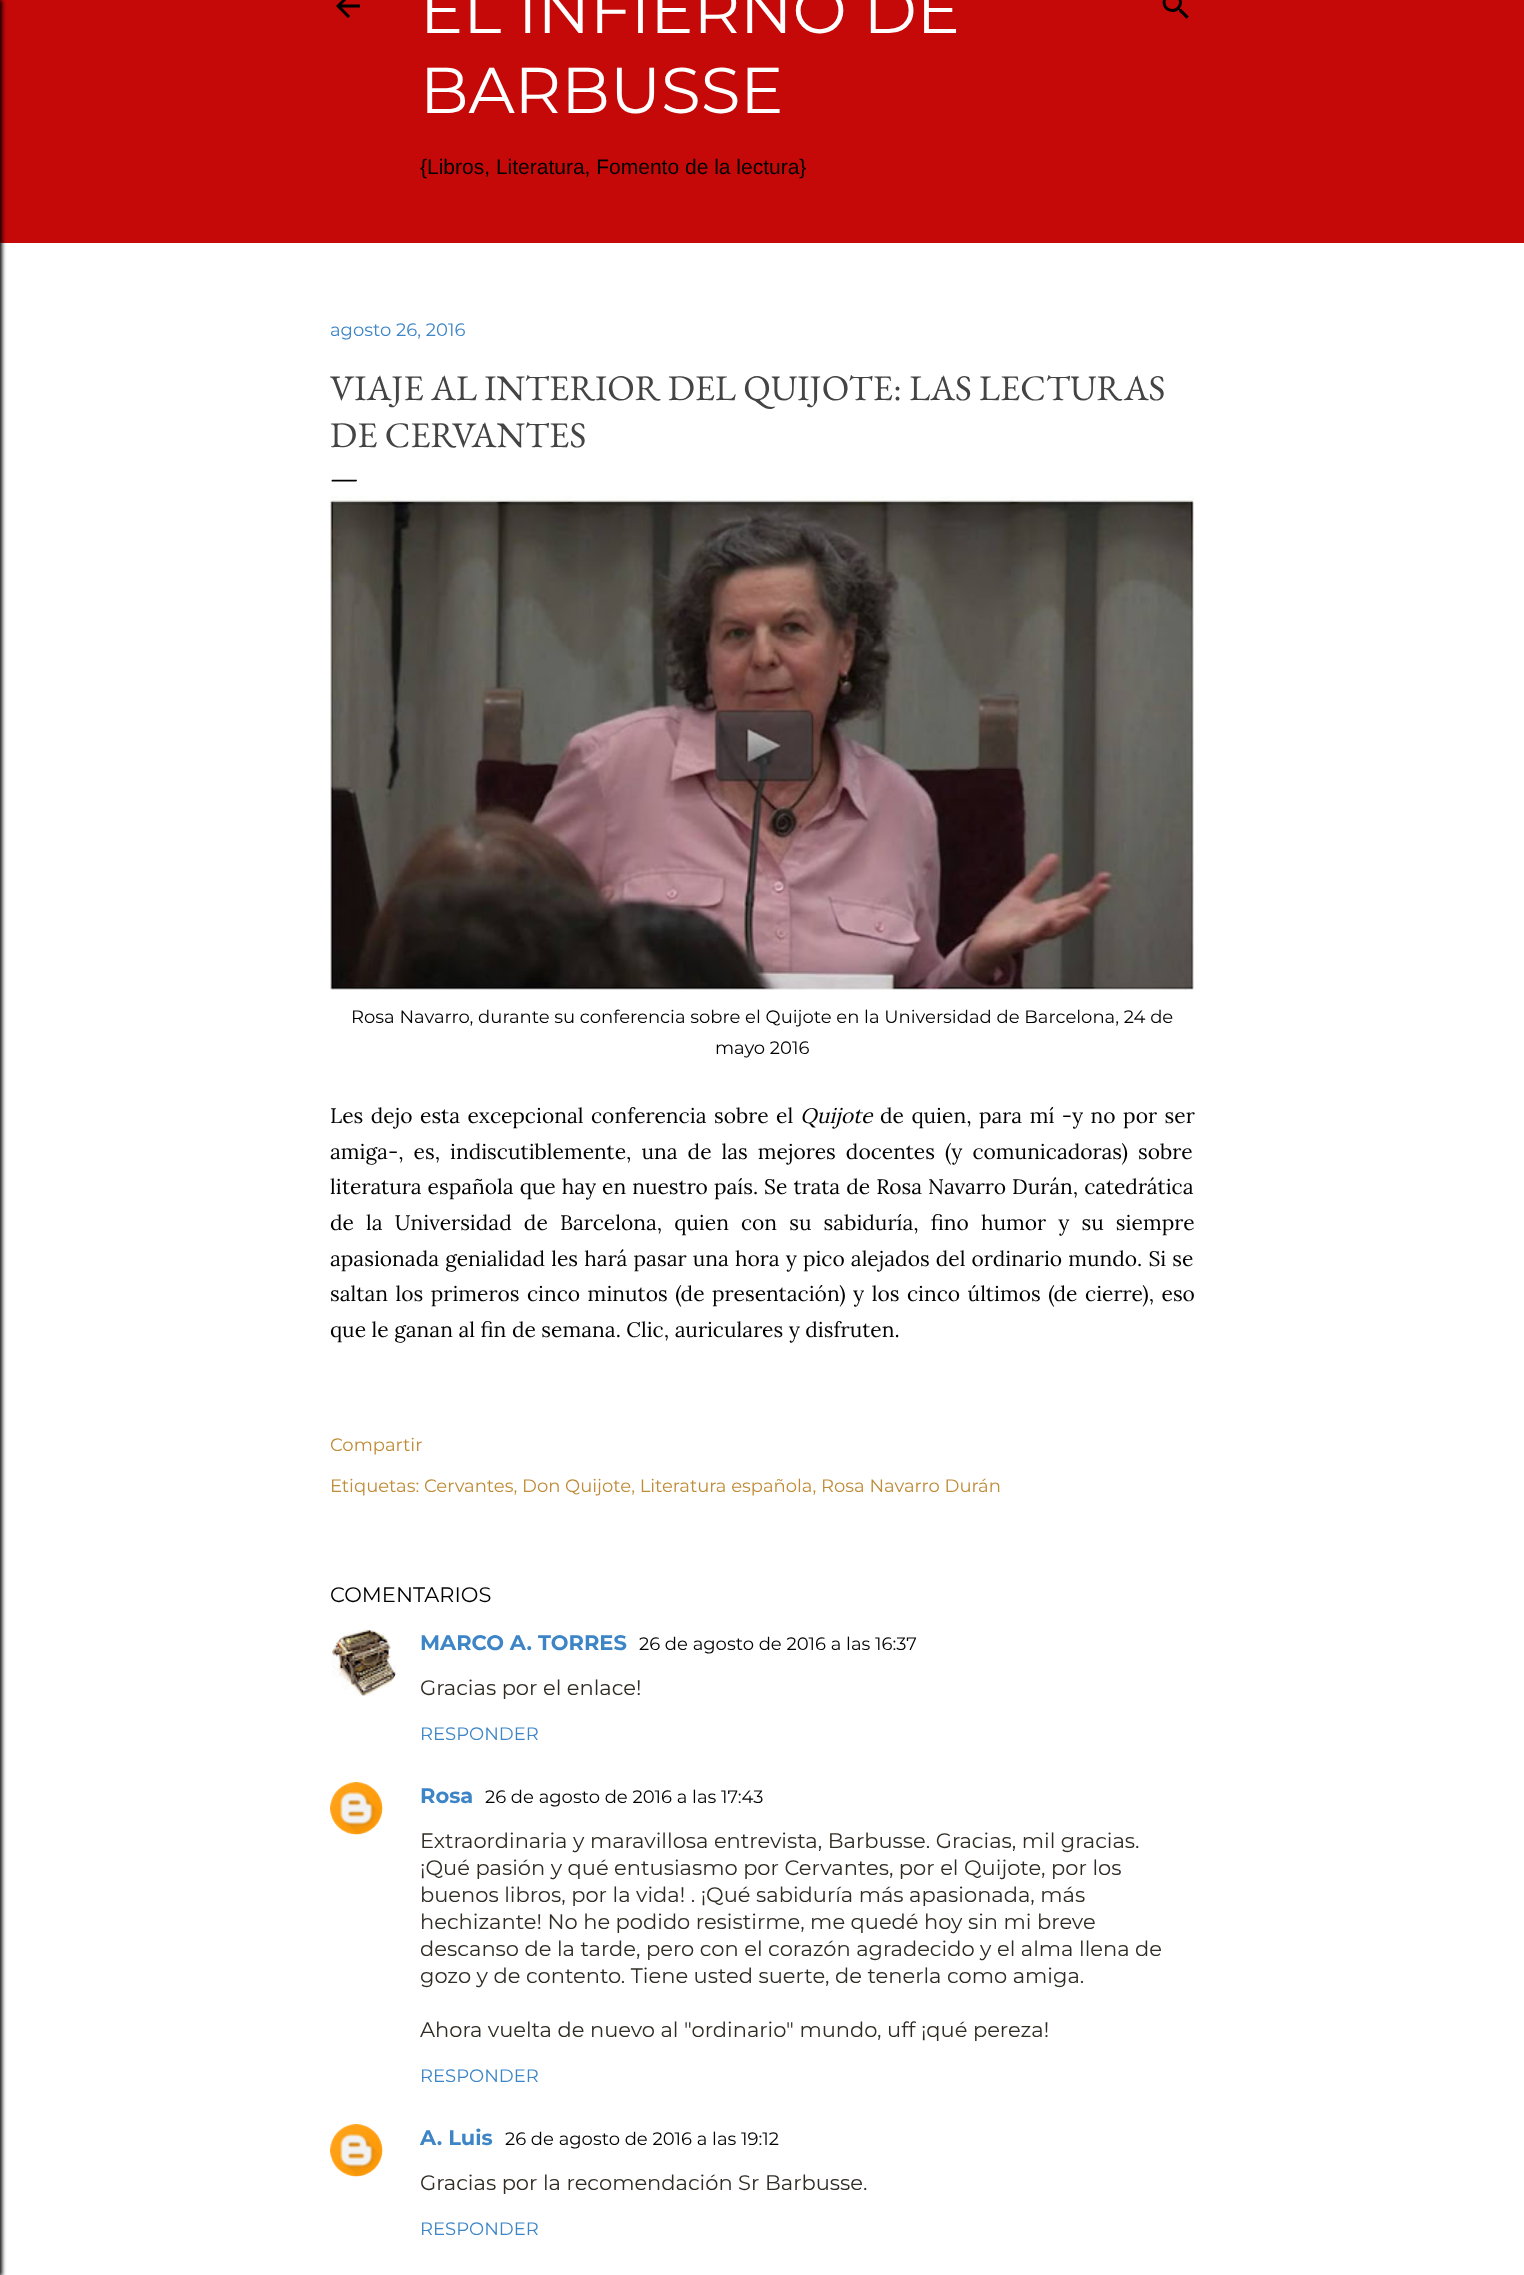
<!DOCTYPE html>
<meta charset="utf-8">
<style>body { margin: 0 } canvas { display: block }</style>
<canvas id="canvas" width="1524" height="2275"></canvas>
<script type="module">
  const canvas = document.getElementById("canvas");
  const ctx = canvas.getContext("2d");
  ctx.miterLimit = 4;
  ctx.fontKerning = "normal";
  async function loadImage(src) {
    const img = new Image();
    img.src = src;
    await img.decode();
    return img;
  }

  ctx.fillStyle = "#ffffff";
  ctx.fillRect(0, 0, 1524, 2275);
  ctx.fillStyle = "#c50909";
  ctx.fillRect(0, 0, 1524, 243);
  ctx.fillStyle = "#000000";
  ctx.filter = "blur(2px)";
  ctx.beginPath();
  ctx.rect(-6, 0, 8, 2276);
  ctx.fill();
  ctx.filter = "none";
  ctx.drawImage(await loadImage("img1.png"), 336, 0, 24, 18);
  ctx.font = "64.5px Montserrat";
  ctx.fillStyle = "#ffffff";
  ctx.fillText("EL INFIERNO DE", 420, 33);
  ctx.fillText("BARBUSSE", 420, 113);
  ctx.font = "21px Liberation Sans";
  ctx.fillStyle = "#000000";
  ctx.fillText("{Libros, Literatura, Fomento de la lectura}", 420, 174);
  ctx.drawImage(await loadImage("img2.png"), 1162, 0, 27, 19);
  ctx.font = "18px Montserrat";
  ctx.fillStyle = "#3d85c6";
  ctx.fillText("agosto 26, 2016", 330, 336);
  ctx.font = "36px EB Garamond";
  ctx.fillStyle = "#444444";
  ctx.fillText("VIAJE AL INTERIOR DEL QUIJOTE: LAS LECTURAS", 330, 400);
  ctx.fillText("DE CERVANTES", 330, 447);
  ctx.font = "30px EB Garamond";
  ctx.fillStyle = "#000000";
  ctx.fillText("—", 330, 487);
  ctx.drawImage(await loadImage("img3.png"), 330, 496, 864, 494);
  ctx.font = "18px Montserrat";
  ctx.fillText("Rosa Navarro, durante su conferencia sobre el Quijote en la Universidad de Barcelona, 24 de", 351, 1023);
  ctx.fillText("mayo 2016", 715, 1054);
  ctx.wordSpacing = "2px";
  ctx.font = "21px Lora";
  ctx.fillText("Les dejo esta excepcional conferencia sobre el", 330, 1123);
  ctx.wordSpacing = "0px";
  ctx.font = "italic 21px Lora";
  ctx.fillText("Quijote", 800, 1123);
  ctx.wordSpacing = "2px";
  ctx.font = "21px Lora";
  ctx.fillText("de quien, para mí -y no por ser", 880, 1123);
  ctx.wordSpacing = "4.5px";
  ctx.fillText("amiga-, es, indiscutiblemente, una de las mejores docentes (y comunicadoras) sobre", 330, 1159);
  ctx.wordSpacing = "0.5px";
  ctx.fillText("literatura española que hay en nuestro país. Se trata de Rosa Navarro Durán, catedrática", 330, 1194);
  ctx.wordSpacing = "6.6px";
  ctx.fillText("de la Universidad de Barcelona, quien con su sabiduría, fino humor y su siempre", 330, 1230);
  ctx.wordSpacing = "0.6px";
  ctx.fillText("apasionada genialidad les hará pasar una hora y pico alejados del ordinario mundo. Si se", 330, 1266);
  ctx.wordSpacing = "2px";
  ctx.fillText("saltan los primeros cinco minutos (de presentación) y los cinco últimos (de cierre), eso", 330, 1301);
  ctx.wordSpacing = "0px";
  ctx.fillText("que le ganan al fin de semana. Clic, auriculares y disfruten.", 330, 1337);
  ctx.font = "18px Montserrat";
  ctx.fillStyle = "#bf8b37";
  ctx.fillText("Compartir", 330, 1451);
  ctx.fillText("Etiquetas: Cervantes, Don Quijote, Literatura española, Rosa Navarro Durán", 330, 1492);
  ctx.font = "21px Montserrat";
  ctx.fillStyle = "#000000";
  ctx.fillText("COMENTARIOS", 330, 1602);
  ctx.drawImage(await loadImage("img4.png"), 330, 1629, 67, 68);
  ctx.font = "bold 21px Montserrat";
  ctx.fillStyle = "#3d85c6";
  ctx.fillText("MARCO A. TORRES", 420, 1650);
  ctx.font = "18px Montserrat";
  ctx.fillStyle = "#000000";
  ctx.fillText("26 de agosto de 2016 a las 16:37", 639, 1650);
  ctx.font = "21px Montserrat";
  ctx.fillStyle = "#302c24";
  ctx.fillText("Gracias por el enlace!", 420, 1695);
  ctx.font = "18px Montserrat";
  ctx.fillStyle = "#3d85c6";
  ctx.fillText("RESPONDER", 420, 1740);
  ctx.drawImage(await loadImage("img5.png"), 330, 1782, 53, 53);
  ctx.font = "bold 21px Montserrat";
  ctx.fillText("Rosa", 420, 1803);
  ctx.font = "18px Montserrat";
  ctx.fillStyle = "#000000";
  ctx.fillText("26 de agosto de 2016 a las 17:43", 485, 1803);
  ctx.font = "21px Montserrat";
  ctx.fillStyle = "#302c24";
  ctx.fillText("Extraordinaria y maravillosa entrevista, Barbusse. Gracias, mil gracias.", 420, 1848);
  ctx.fillText("¡Qué pasión y qué entusiasmo por Cervantes, por el Quijote, por los", 420, 1875);
  ctx.fillText("buenos libros, por la vida! . ¡Qué sabiduría más apasionada, más", 420, 1902);
  ctx.fillText("hechizante! No he podido resistirme, me quedé hoy sin mi breve", 420, 1929);
  ctx.fillText("descanso de la tarde, pero con el corazón agradecido y el alma llena de", 420, 1956);
  ctx.fillText("gozo y de contento. Tiene usted suerte, de tenerla como amiga.", 420, 1983);
  ctx.fillText("Ahora vuelta de nuevo al \"ordinario\" mundo, uff ¡qué pereza!", 420, 2037);
  ctx.font = "18px Montserrat";
  ctx.fillStyle = "#3d85c6";
  ctx.fillText("RESPONDER", 420, 2082);
  ctx.drawImage(await loadImage("img5.png"), 330, 2124, 53, 53);
  ctx.font = "bold 21px Montserrat";
  ctx.fillText("A. Luis", 420, 2145);
  ctx.font = "18px Montserrat";
  ctx.fillStyle = "#000000";
  ctx.fillText("26 de agosto de 2016 a las 19:12", 505, 2145);
  ctx.font = "21px Montserrat";
  ctx.fillStyle = "#302c24";
  ctx.fillText("Gracias por la recomendación Sr Barbusse.", 420, 2190);
  ctx.font = "18px Montserrat";
  ctx.fillStyle = "#3d85c6";
  ctx.fillText("RESPONDER", 420, 2235);
</script>
